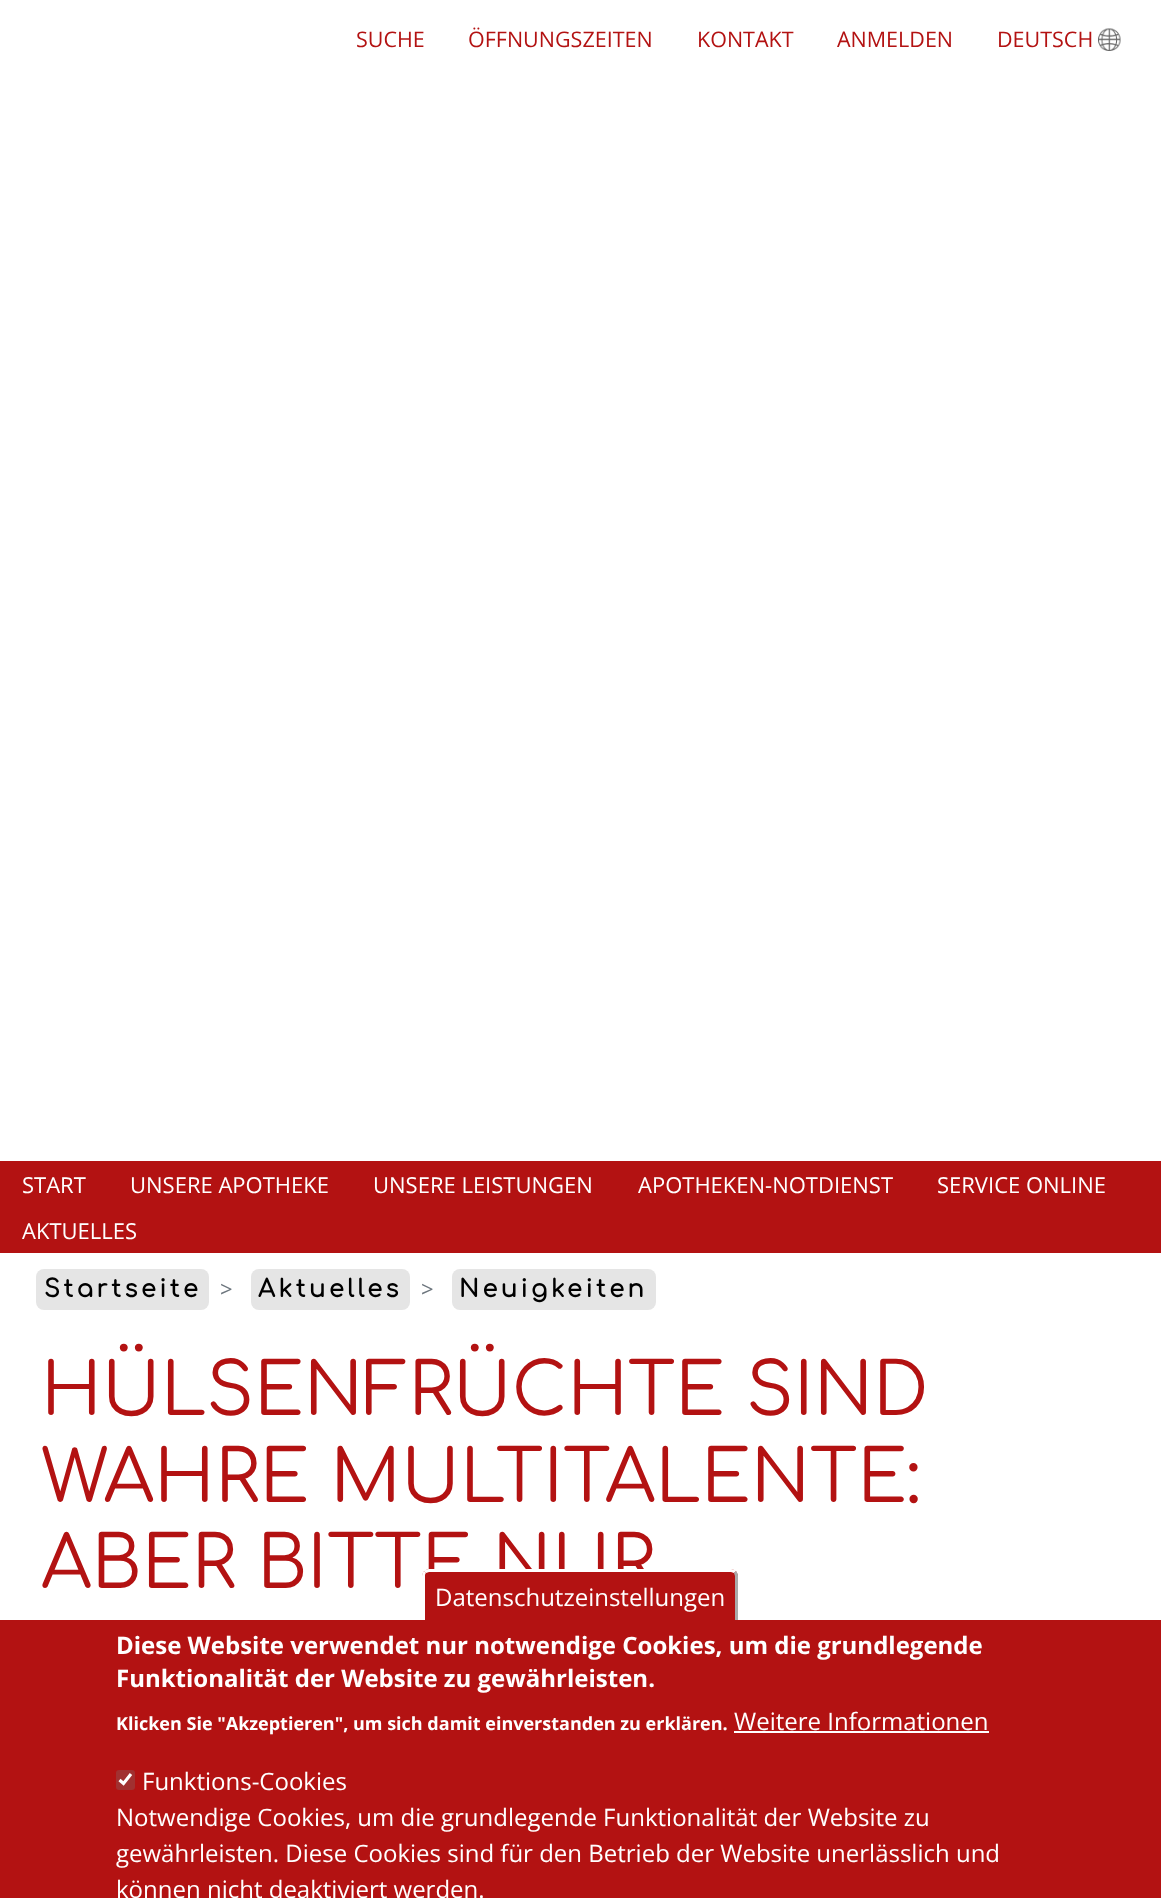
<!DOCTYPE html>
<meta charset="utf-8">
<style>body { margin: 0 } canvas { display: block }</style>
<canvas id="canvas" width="1161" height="1898"></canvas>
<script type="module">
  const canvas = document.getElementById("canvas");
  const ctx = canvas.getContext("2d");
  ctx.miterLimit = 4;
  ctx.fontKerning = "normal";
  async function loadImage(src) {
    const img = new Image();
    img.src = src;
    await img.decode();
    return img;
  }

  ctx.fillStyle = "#ffffff";
  ctx.fillRect(0, 0, 1161, 1898);
  ctx.font = "21.5px Open Sans";
  ctx.fillStyle = "#b31212";
  ctx.fillText("SUCHE", 356, 47);
  ctx.fillText("ÖFFNUNGSZEITEN", 468, 47);
  ctx.fillText("KONTAKT", 697, 47);
  ctx.fillText("ANMELDEN", 837, 47);
  ctx.fillText("DEUTSCH", 997, 47);
  ctx.drawImage(await loadImage("img1.png"), 1098, 28, 23, 23);
  ctx.fillRect(0, 1161, 1161, 92);
  ctx.font = "22px Open Sans";
  ctx.fillStyle = "#ffffff";
  ctx.fillText("START", 22, 1193);
  ctx.fillText("UNSERE APOTHEKE", 130, 1193);
  ctx.fillText("UNSERE LEISTUNGEN", 373, 1193);
  ctx.fillText("APOTHEKEN-NOTDIENST", 638, 1193);
  ctx.fillText("SERVICE ONLINE", 937, 1193);
  ctx.fillText("AKTUELLES", 22, 1239);
  ctx.fillStyle = "#e5e5e5";
  ctx.beginPath();
  ctx.roundRect(36, 1269, 173, 41, 8);
  ctx.fill();
  ctx.letterSpacing = "3.6px";
  ctx.font = "bold 24px Comfortaa";
  ctx.fillStyle = "#000000";
  ctx.fillText("Startseite", 44, 1297);
  ctx.letterSpacing = "0px";
  ctx.font = "22px Open Sans";
  ctx.fillStyle = "#6c757d";
  ctx.fillText(">", 220, 1297);
  ctx.fillStyle = "#e5e5e5";
  ctx.beginPath();
  ctx.roundRect(251, 1269, 159, 41, 8);
  ctx.fill();
  ctx.letterSpacing = "3.6px";
  ctx.font = "bold 24px Comfortaa";
  ctx.fillStyle = "#000000";
  ctx.fillText("Aktuelles", 258, 1297);
  ctx.letterSpacing = "0px";
  ctx.font = "22px Open Sans";
  ctx.fillStyle = "#6c757d";
  ctx.fillText(">", 421, 1297);
  ctx.fillStyle = "#e5e5e5";
  ctx.beginPath();
  ctx.roundRect(452, 1269, 204, 41, 8);
  ctx.fill();
  ctx.letterSpacing = "3.6px";
  ctx.font = "bold 24px Comfortaa";
  ctx.fillStyle = "#000000";
  ctx.fillText("Neuigkeiten", 459, 1297);
  ctx.letterSpacing = "0px";
  ctx.font = "72px Comfortaa";
  ctx.fillStyle = "#b31212";
  ctx.fillText("HÜLSENFRÜCHTE SIND", 41, 1415);
  ctx.fillText("WAHRE MULTITALENTE:", 41, 1502);
  ctx.fillText("ABER BITTE NUR", 41, 1588);
  ctx.fillRect(0, 1620, 1161, 278);
  ctx.beginPath();
  ctx.roundRect(422, 1569, 316, 51, [8, 8, 0, 0]);
  ctx.fill();
  ctx.fillStyle = "#ffffff";
  ctx.beginPath();
  ctx.moveTo(429, 1569);
  ctx.lineTo(731, 1569);
  ctx.bezierCurveTo(733, 1569, 735, 1570, 736, 1571);
  ctx.lineTo(734, 1573);
  ctx.bezierCurveTo(733, 1573, 732, 1572, 731, 1572);
  ctx.lineTo(429, 1572);
  ctx.bezierCurveTo(428, 1572, 427, 1573, 426, 1573);
  ctx.lineTo(424, 1571);
  ctx.bezierCurveTo(425, 1570, 427, 1569, 429, 1569);
  ctx.closePath();
  ctx.fill();
  ctx.fillStyle = "#aaaaaa";
  ctx.beginPath();
  ctx.moveTo(735, 1620);
  ctx.lineTo(738, 1620);
  ctx.lineTo(738, 1576);
  ctx.bezierCurveTo(738, 1574, 737, 1572, 736, 1571);
  ctx.lineTo(734, 1573);
  ctx.lineTo(735, 1576);
  ctx.closePath();
  ctx.fill();
  ctx.fillStyle = "#ffffff";
  ctx.beginPath();
  ctx.moveTo(422, 1620);
  ctx.lineTo(425, 1620);
  ctx.lineTo(425, 1576);
  ctx.bezierCurveTo(425, 1575, 425, 1574, 426, 1573);
  ctx.lineTo(424, 1571);
  ctx.bezierCurveTo(423, 1572, 422, 1574, 422, 1576);
  ctx.closePath();
  ctx.fill();
  ctx.font = "24px Open Sans";
  ctx.fillText("Datenschutzeinstellungen", 435, 1606);
  ctx.font = "bold 24px Open Sans";
  ctx.fillText("Diese Website verwendet nur notwendige Cookies, um die grundlegende", 116, 1654);
  ctx.fillText("Funktionalität der Website zu gewährleisten.", 116, 1687);
  ctx.font = "bold 18px Open Sans";
  ctx.fillText("Klicken Sie \"Akzeptieren\", um sich damit einverstanden zu erklären.", 116, 1730);
  ctx.font = "24px Open Sans";
  ctx.fillText("Weitere Informationen", 734, 1730);
  ctx.fillRect(734, 1731, 255, 2);
  ctx.fillStyle = "#a13030";
  ctx.beginPath();
  ctx.roundRect(116, 1770, 19, 20, 3);
  ctx.fill();
  ctx.beginPath();
  ctx.moveTo(119.5, 1780);
  ctx.lineTo(123.5, 1783.5);
  ctx.lineTo(131, 1774);
  ctx.strokeStyle = "#ffffff";
  ctx.lineWidth = 3.1;
  ctx.stroke();
  ctx.fillStyle = "#ffffff";
  ctx.fillText("Funktions-Cookies", 142, 1790);
  ctx.fillText("Notwendige Cookies, um die grundlegende Funktionalität der Website zu", 116, 1826);
  ctx.fillText("gewährleisten. Diese Cookies sind für den Betrieb der Website unerlässlich und", 116, 1862);
  ctx.fillText("können nicht deaktiviert werden.", 116, 1898);
</script>
